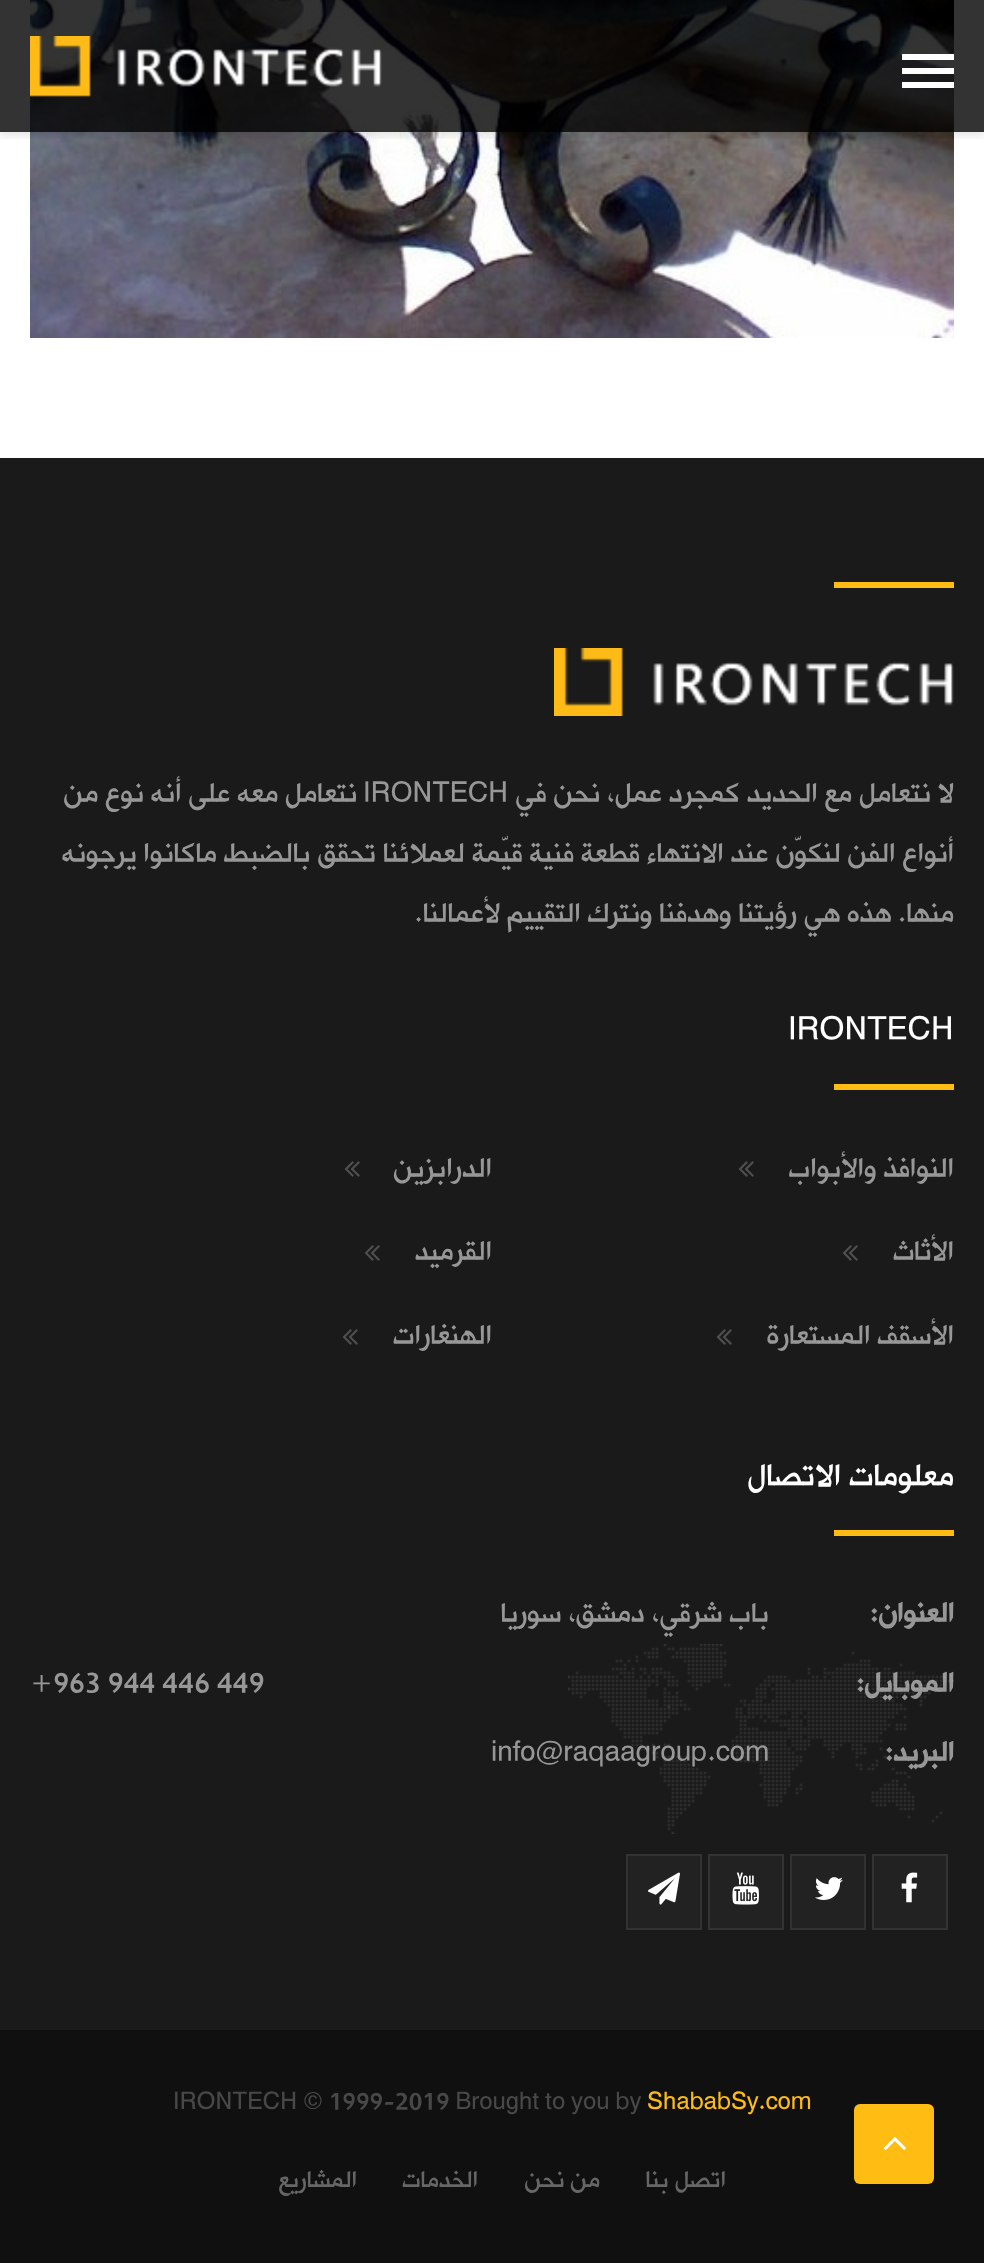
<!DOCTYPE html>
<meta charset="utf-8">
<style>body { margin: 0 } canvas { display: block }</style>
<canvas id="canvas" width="984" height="2263"></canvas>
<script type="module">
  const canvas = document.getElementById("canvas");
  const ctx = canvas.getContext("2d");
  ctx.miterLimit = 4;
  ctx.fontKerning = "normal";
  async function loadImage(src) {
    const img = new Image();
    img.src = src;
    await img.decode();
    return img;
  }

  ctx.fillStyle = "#ffffff";
  ctx.fillRect(0, 0, 984, 2263);
  ctx.drawImage(await loadImage("img2.png"), 30, 0, 924, 338);
  ctx.save();
  ctx.beginPath();
  ctx.rect(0, 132, 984, 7);
  ctx.clip();
  ctx.fillStyle = "rgba(0, 0, 0, 0.1)";
  ctx.filter = "blur(4px)";
  ctx.beginPath();
  ctx.rect(0, 4, 984, 132);
  ctx.fill();
  ctx.filter = "none";
  ctx.restore();
  ctx.fillStyle = "rgba(0, 0, 0, 0.8)";
  ctx.fillRect(0, 0, 984, 132);
  ctx.fillStyle = "#ffffff";
  ctx.fillRect(902, 54, 52, 6);
  ctx.fillRect(902, 68, 52, 6);
  ctx.fillRect(902, 82, 52, 6);
  ctx.drawImage(await loadImage("img1.png"), 30, 36, 352, 61);
  ctx.fillStyle = "#1a1a1a";
  ctx.fillRect(0, 458, 984, 1572);
  ctx.fillStyle = "#ffbc13";
  ctx.fillRect(834, 582, 120, 6);
  ctx.drawImage(await loadImage("img3.png"), 554, 648, 400, 68);
  ctx.direction = "rtl";
  ctx.font = "32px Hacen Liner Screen";
  ctx.fillStyle = "#979797";
  ctx.fillText("لا نتعامل مع الحديد كمجرد عمل، نحن في", 954, 804);
  ctx.direction = "ltr";
  ctx.fillText("IRONTECH", 363, 804);
  ctx.direction = "rtl";
  ctx.fillText("نتعامل معه على أنه نوع من", 357, 804);
  ctx.fillText("أنواع الفن لنكوّن عند الانتهاء قطعة فنية قيّمة لعملائنا تحقق بالضبط ماكانوا يرجونه", 954, 864);
  ctx.fillText("منها. هذه هي رؤيتنا وهدفنا ونترك التقييم لأعمالنا.", 954, 924);
  ctx.direction = "ltr";
  ctx.font = "36.5px Hacen Liner Screen";
  ctx.fillStyle = "#ffffff";
  ctx.fillText("IRONTECH", 788, 1042);
  ctx.fillStyle = "#ffbc13";
  ctx.fillRect(834, 1084, 120, 6);
  ctx.direction = "rtl";
  ctx.font = "32px Hacen Liner Screen";
  ctx.fillStyle = "#979797";
  ctx.fillText("النوافذ والأبواب", 954, 1179);
  ctx.drawImage(await loadImage("img4.png"), 738, 1161, 16, 16);
  ctx.fillText("الدرابزين", 492, 1179);
  ctx.drawImage(await loadImage("img4.png"), 344, 1161, 16, 16);
  ctx.fillText("الأثاث", 954, 1262);
  ctx.drawImage(await loadImage("img4.png"), 842, 1245, 16, 16);
  ctx.fillText("القرميد", 492, 1262);
  ctx.drawImage(await loadImage("img4.png"), 364, 1245, 16, 16);
  ctx.fillText("الأسقف المستعارة", 954, 1346);
  ctx.drawImage(await loadImage("img4.png"), 716, 1329, 16, 16);
  ctx.fillText("الهنغارات", 492, 1346);
  ctx.drawImage(await loadImage("img4.png"), 342, 1329, 16, 16);
  ctx.font = "36.5px Hacen Liner Screen";
  ctx.fillStyle = "#ffffff";
  ctx.fillText("معلومات الاتصال", 954, 1488);
  ctx.fillStyle = "#ffbc13";
  ctx.fillRect(834, 1530, 120, 6);
  ctx.font = "bold 32px Hacen Liner Screen";
  ctx.fillStyle = "#979797";
  ctx.fillText("العنوان:", 954, 1624);
  ctx.font = "32px Hacen Liner Screen";
  ctx.fillText("باب شرقي، دمشق، سوريا", 769, 1624);
  ctx.font = "bold 32px Hacen Liner Screen";
  ctx.fillText("الموبايل:", 954, 1694);
  ctx.fillText("البريد:", 954, 1763);
  ctx.direction = "ltr";
  ctx.font = "32px Hacen Liner Screen";
  ctx.fillText("info@raqaagroup.com", 491, 1763);
  ctx.drawImage(await loadImage("img5.png"), 568, 1644, 386, 190);
  ctx.fillText("+963 944 446 449", 30, 1694);
  ctx.fillStyle = "#222222";
  ctx.beginPath();
  ctx.rect(873, 1855, 74, 74);
  ctx.fill();
  ctx.strokeStyle = "#333333";
  ctx.lineWidth = 2;
  ctx.stroke();
  ctx.drawImage(await loadImage("img6.png"), 901, 1872, 17, 31);
  ctx.beginPath();
  ctx.rect(791, 1855, 74, 74);
  ctx.fill();
  ctx.stroke();
  ctx.drawImage(await loadImage("img7.png"), 815, 1877, 28, 23);
  ctx.beginPath();
  ctx.rect(709, 1855, 74, 74);
  ctx.fill();
  ctx.stroke();
  ctx.drawImage(await loadImage("img8.png"), 732, 1872, 27, 33);
  ctx.beginPath();
  ctx.rect(627, 1855, 74, 74);
  ctx.fill();
  ctx.stroke();
  ctx.drawImage(await loadImage("img9.png"), 648, 1872, 32, 33);
  ctx.fillStyle = "#101010";
  ctx.fillRect(0, 2030, 984, 233);
  ctx.font = "27.4px Hacen Liner Screen";
  ctx.fillStyle = "#ffbc13";
  ctx.fillText("ShababSy.com", 647, 2111);
  ctx.fillStyle = "#484848";
  ctx.fillText("IRONTECH © 1999-2019 Brought to you by", 173, 2111);
  ctx.direction = "rtl";
  ctx.fillStyle = "#666666";
  ctx.fillText("اتصل بنا", 726, 2189);
  ctx.fillText("من نحن", 600, 2189);
  ctx.fillText("الخدمات", 478, 2189);
  ctx.fillText("المشاريع", 357, 2189);
  ctx.fillStyle = "#ffbc13";
  ctx.beginPath();
  ctx.roundRect(854, 2104, 80, 80, 6);
  ctx.fill();
  ctx.drawImage(await loadImage("img10.png"), 883, 2137, 23, 13);
</script>
